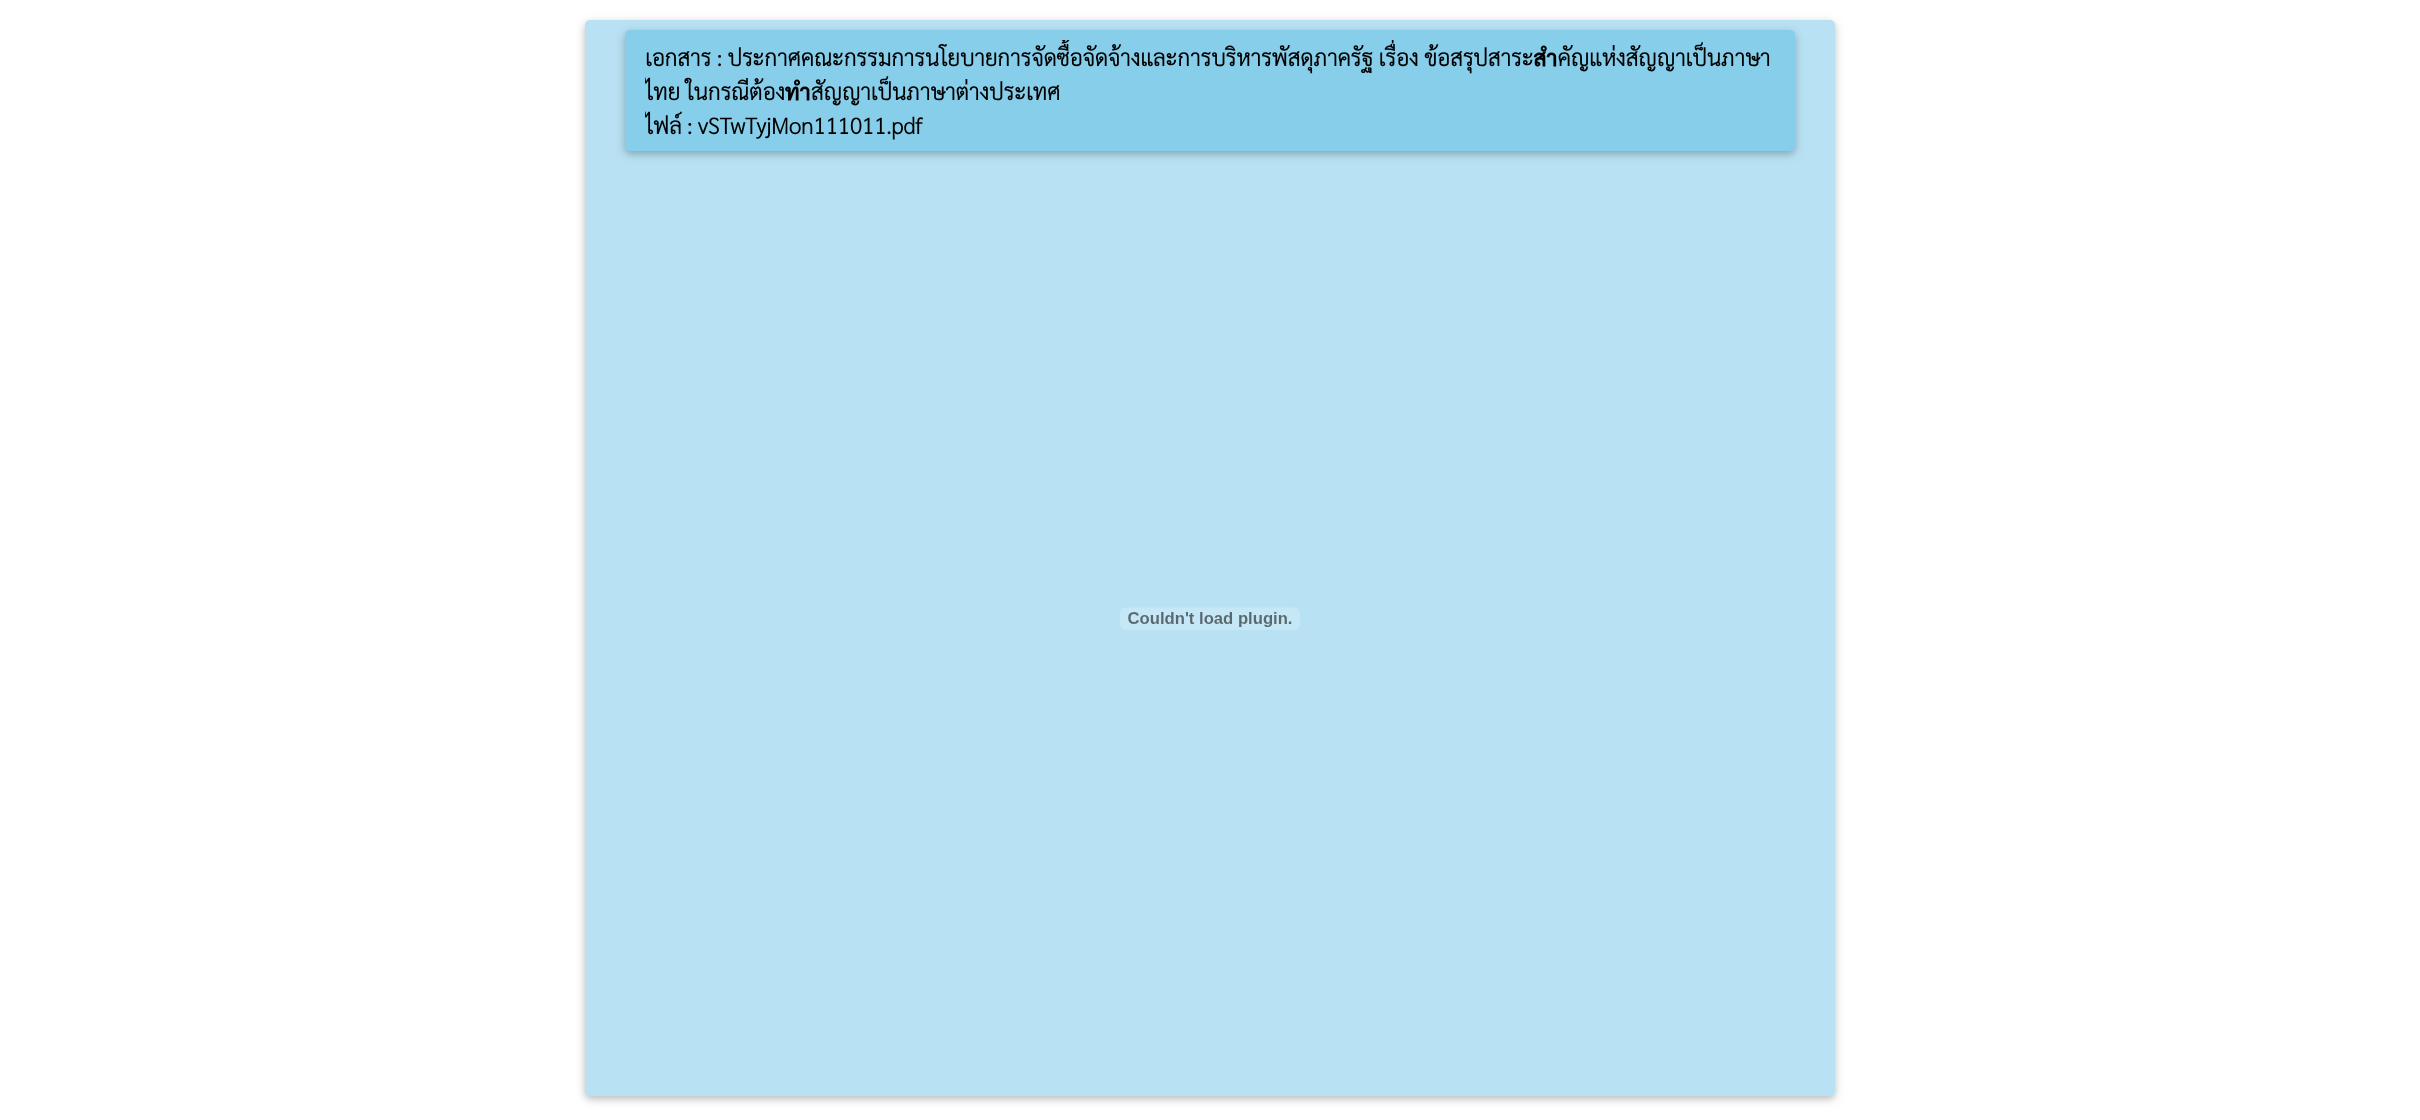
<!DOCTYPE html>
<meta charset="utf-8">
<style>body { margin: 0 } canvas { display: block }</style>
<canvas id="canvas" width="2420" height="1120"></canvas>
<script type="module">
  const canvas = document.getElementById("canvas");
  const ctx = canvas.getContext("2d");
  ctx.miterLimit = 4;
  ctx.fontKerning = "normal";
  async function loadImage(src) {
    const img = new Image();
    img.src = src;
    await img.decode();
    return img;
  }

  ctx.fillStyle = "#ffffff";
  ctx.fillRect(0, 0, 2420, 1120);
  ctx.fillStyle = "rgba(0, 0, 0, 0.12)";
  ctx.filter = "blur(6px)";
  ctx.beginPath();
  ctx.roundRect(585, 23, 1250, 1076, 5);
  ctx.fill();
  ctx.filter = "none";
  ctx.fillStyle = "rgba(0, 0, 0, 0.16)";
  ctx.filter = "blur(3px)";
  ctx.beginPath();
  ctx.roundRect(585, 23, 1250, 1076, 5);
  ctx.fill();
  ctx.filter = "none";
  ctx.fillStyle = "#b8e2f3";
  ctx.beginPath();
  ctx.roundRect(585, 20, 1250, 1076, 5);
  ctx.fill();
  ctx.fillStyle = "rgba(0, 0, 0, 0.12)";
  ctx.filter = "blur(6px)";
  ctx.beginPath();
  ctx.roundRect(625, 33, 1170, 121, 5);
  ctx.fill();
  ctx.filter = "none";
  ctx.fillStyle = "rgba(0, 0, 0, 0.16)";
  ctx.filter = "blur(3px)";
  ctx.beginPath();
  ctx.roundRect(625, 33, 1170, 121, 5);
  ctx.fill();
  ctx.filter = "none";
  ctx.fillStyle = "#87ceeb";
  ctx.beginPath();
  ctx.roundRect(625, 30, 1170, 121, 5);
  ctx.fill();
  ctx.save();
  ctx.beginPath();
  ctx.rect(645, 40, 1130, 101);
  ctx.clip();
  ctx.font = "bold 22.5px Sarabun";
  ctx.fillStyle = "#000000";
  ctx.fillText("เอกสาร : ประกาศคณะกรรมการนโยบายการจัดซื้อจัดจ้างและการบริหารพัสดุภาครัฐ เรื่อง ข้อสรุปสาระสำคัญแห่งสัญญาเป็นภาษา", 645, 66);
  ctx.fillText("ไทย ในกรณีต้องทำสัญญาเป็นภาษาต่างประเทศ", 645, 100);
  ctx.fillText("ไฟล์", 645, 134);
  ctx.restore();
  ctx.font = "bold 22.5px Sarabun";
  ctx.fillStyle = "#000000";
  ctx.fillText(": vSTwTyjMon111011.pdf", 687, 134);
  ctx.drawImage(await loadImage("img1.png"), 1120, 607, 180, 23);
</script>
